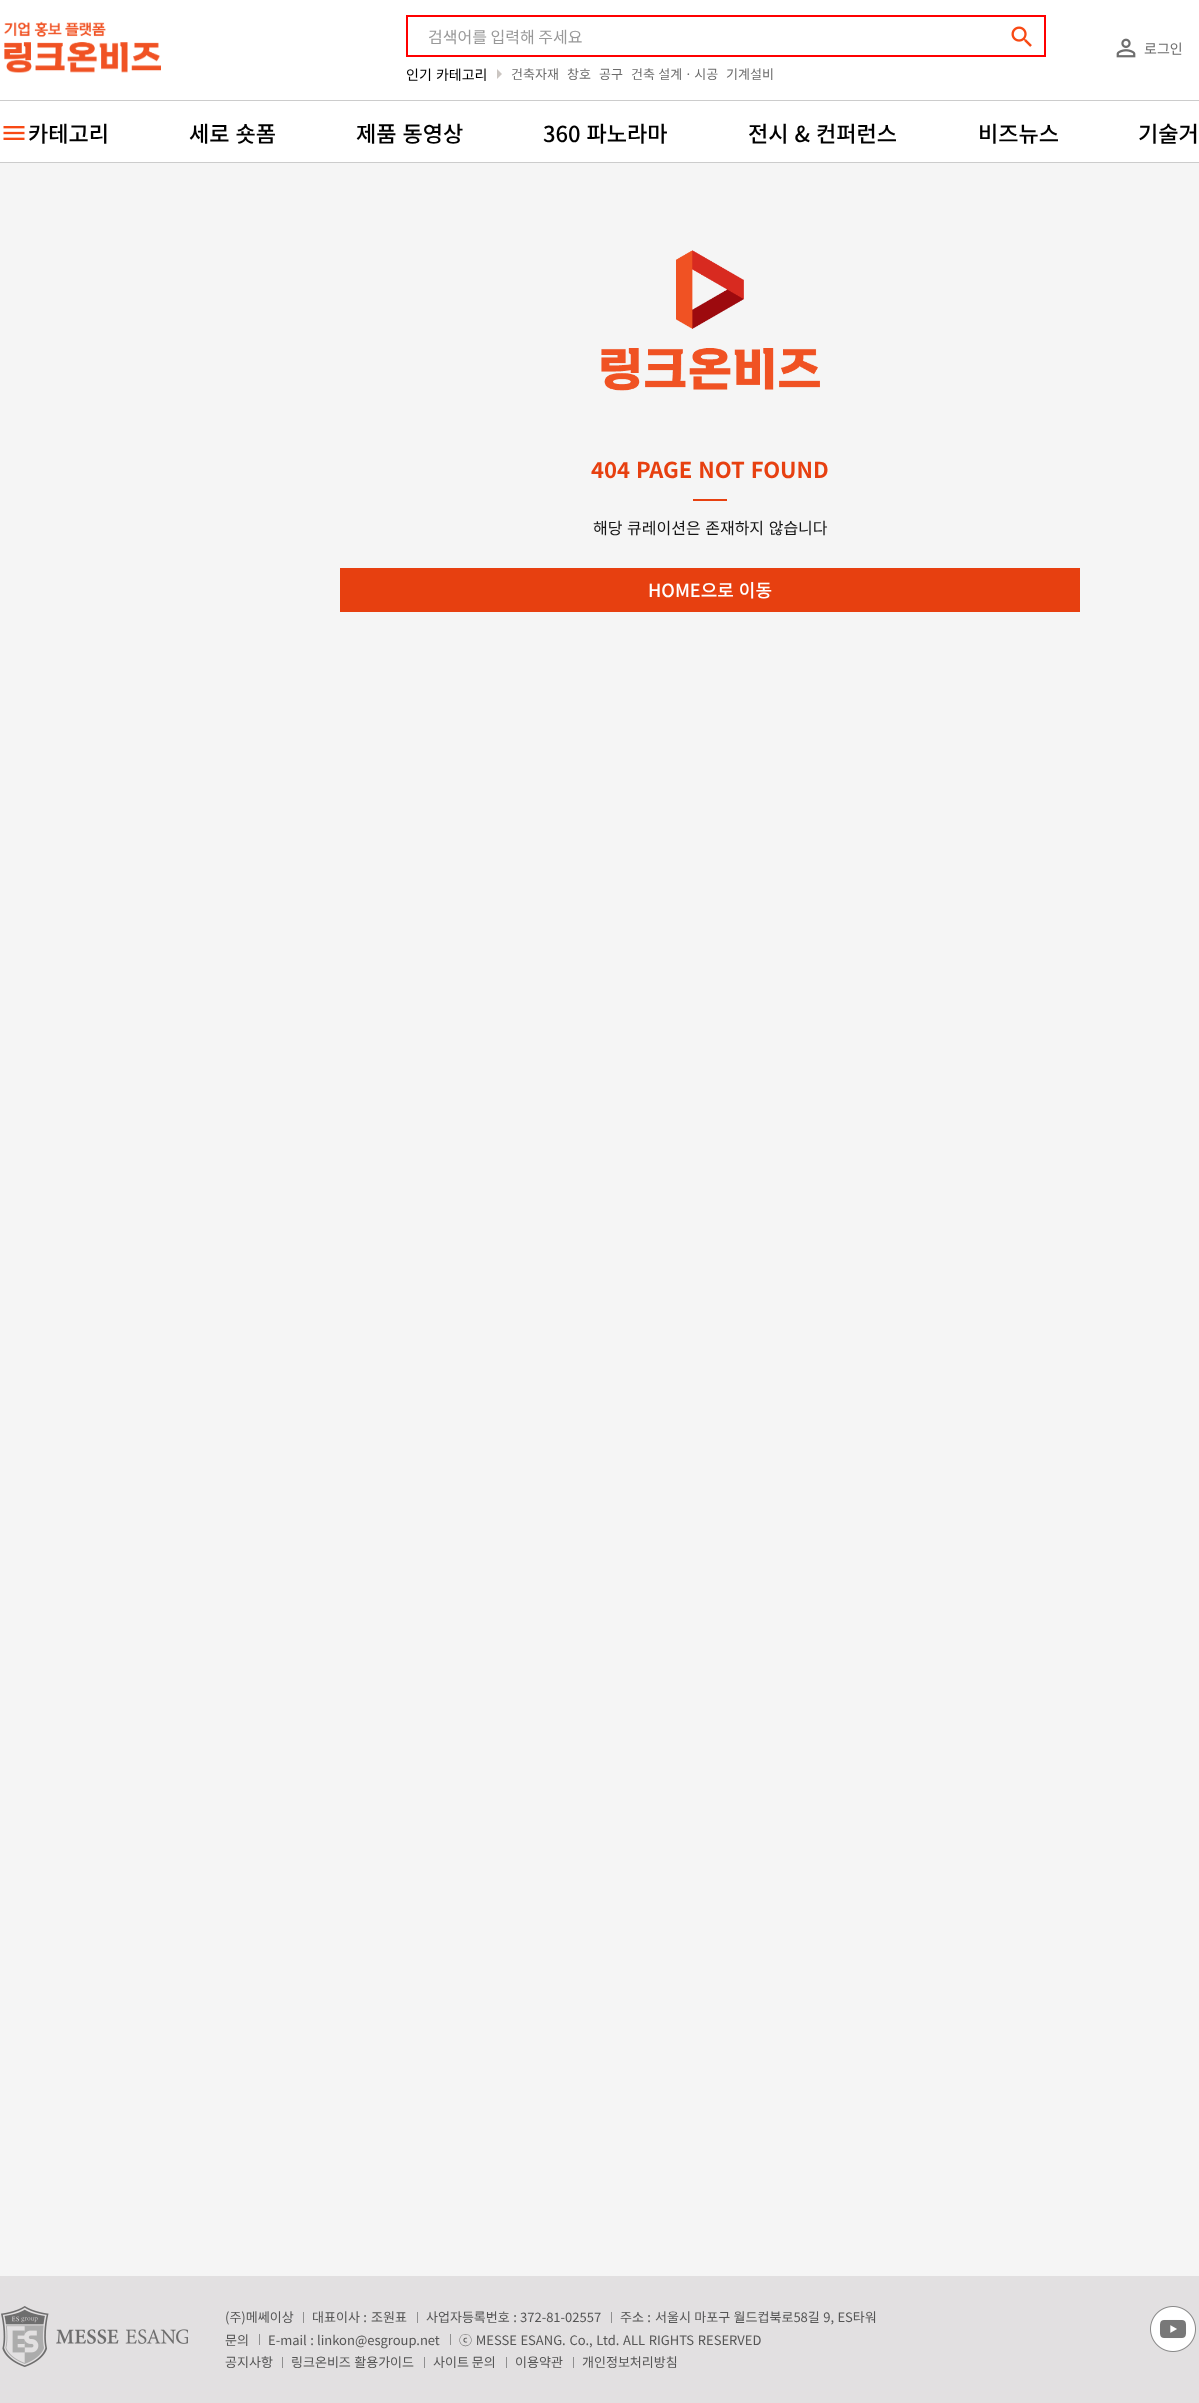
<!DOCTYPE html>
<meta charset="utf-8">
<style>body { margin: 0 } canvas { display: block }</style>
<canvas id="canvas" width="1199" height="2403"></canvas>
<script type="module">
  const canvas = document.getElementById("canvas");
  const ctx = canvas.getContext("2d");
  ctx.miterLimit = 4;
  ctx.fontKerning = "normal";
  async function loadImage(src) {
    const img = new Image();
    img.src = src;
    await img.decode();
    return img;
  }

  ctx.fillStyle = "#f5f5f5";
  ctx.fillRect(0, 0, 1199, 2403);
  ctx.fillStyle = "#ffffff";
  ctx.fillRect(0, 0, 1199, 162);
  ctx.fillStyle = "#cccccc";
  ctx.fillRect(0, 100, 1199, 1);
  ctx.drawImage(await loadImage("img1.png"), 4, 21, 157, 52);
  ctx.strokeStyle = "#ff0000";
  ctx.lineWidth = 2;
  ctx.strokeRect(407, 16, 638, 40);
  ctx.font = "16px Noto Sans KR";
  ctx.fillStyle = "#999999";
  ctx.fillText("검색어를 입력해 주세요", 428, 43);
  ctx.drawImage(await loadImage("img2.png"), 1011, 26, 21, 21);
  ctx.wordSpacing = "1px";
  ctx.font = "14px Noto Sans KR";
  ctx.fillStyle = "#000000";
  ctx.fillText("인기 카테고리", 406, 80);
  ctx.fillStyle = "#cbc6c2";
  ctx.beginPath();
  ctx.moveTo(497, 79);
  ctx.lineTo(497, 69);
  ctx.lineTo(502, 74);
  ctx.closePath();
  ctx.fill();
  ctx.wordSpacing = "0px";
  ctx.font = "13px Noto Sans KR";
  ctx.fillStyle = "#6c6c6c";
  ctx.fillText("건축자재", 511, 79);
  ctx.fillText("창호", 567, 79);
  ctx.fillText("공구", 599, 79);
  ctx.wordSpacing = "0.5px";
  ctx.fillText("건축 설계ㆍ시공", 631, 79);
  ctx.wordSpacing = "0px";
  ctx.fillText("기계설비", 726, 79);
  ctx.drawImage(await loadImage("img3.png"), 1116, 38, 20, 20);
  ctx.font = "14px Noto Sans KR";
  ctx.fillText("로그인", 1144, 54);
  ctx.fillStyle = "#cccccc";
  ctx.fillRect(0, 162, 1199, 1);
  ctx.drawImage(await loadImage("img4.png"), 3, 126, 22, 14);
  ctx.font = "500 22px Noto Sans KR";
  ctx.fillStyle = "#000000";
  ctx.fillText("카테고리", 28, 142);
  ctx.wordSpacing = "1px";
  ctx.fillText("세로 숏폼", 189, 142);
  ctx.fillText("제품 동영상", 356, 142);
  ctx.fillText("360 파노라마", 543, 142);
  ctx.fillText("전시 & 컨퍼런스", 748, 142);
  ctx.wordSpacing = "0px";
  ctx.fillText("비즈뉴스", 978, 142);
  ctx.fillText("기술거", 1138, 142);
  ctx.drawImage(await loadImage("img5.png"), 601, 250, 219, 141);
  ctx.wordSpacing = "1px";
  ctx.font = "bold 22px Noto Sans KR";
  ctx.fillStyle = "#e74010";
  ctx.fillText("404 PAGE NOT FOUND", 591, 478);
  ctx.fillRect(693, 499, 34, 2);
  ctx.font = "16px Noto Sans KR";
  ctx.fillStyle = "#151515";
  ctx.fillText("해당 큐레이션은 존재하지 않습니다", 593, 534);
  ctx.fillStyle = "#e74010";
  ctx.fillRect(340, 568, 740, 44);
  ctx.font = "500 18px Noto Sans KR";
  ctx.fillStyle = "#ffffff";
  ctx.fillText("HOME으로 이동", 648, 597);
  ctx.fillStyle = "#e2e0e1";
  ctx.fillRect(0, 2276, 1199, 127);
  ctx.drawImage(await loadImage("img6.png"), 1, 2306, 187, 61);
  ctx.wordSpacing = "0px";
  ctx.font = "13px Noto Sans KR";
  ctx.fillStyle = "#555555";
  ctx.fillText("(주)메쎄이상", 225, 2322);
  ctx.wordSpacing = "0.5px";
  ctx.fillText("대표이사 :", 312, 2322);
  ctx.fillStyle = "#8f8f8f";
  ctx.fillRect(303, 2312, 1, 11);
  ctx.wordSpacing = "0px";
  ctx.fillStyle = "#555555";
  ctx.fillText("조원표", 371, 2322);
  ctx.wordSpacing = "0.5px";
  ctx.fillText("사업자등록번호 :", 426, 2322);
  ctx.fillStyle = "#8f8f8f";
  ctx.fillRect(417, 2312, 1, 11);
  ctx.wordSpacing = "0px";
  ctx.fillStyle = "#555555";
  ctx.fillText("372-81-02557", 520, 2322);
  ctx.wordSpacing = "0.5px";
  ctx.fillText("주소 :", 620, 2322);
  ctx.fillStyle = "#8f8f8f";
  ctx.fillRect(611, 2312, 1, 11);
  ctx.fillStyle = "#555555";
  ctx.fillText("서울시 마포구 월드컵북로58길 9, ES타워", 655, 2322);
  ctx.wordSpacing = "0px";
  ctx.fillText("문의", 225, 2345);
  ctx.wordSpacing = "0.5px";
  ctx.fillText("E-mail :", 268, 2345);
  ctx.fillStyle = "#8f8f8f";
  ctx.fillRect(259, 2334, 1, 11);
  ctx.wordSpacing = "0px";
  ctx.fillStyle = "#555555";
  ctx.fillText("linkon@esgroup.net", 317, 2345);
  ctx.wordSpacing = "0.75px";
  ctx.fillText("ⓒ MESSE ESANG. Co., Ltd. ALL RIGHTS RESERVED", 459, 2345);
  ctx.fillStyle = "#8f8f8f";
  ctx.fillRect(450, 2334, 1, 11);
  ctx.wordSpacing = "0px";
  ctx.fillStyle = "#555555";
  ctx.fillText("공지사항", 225, 2367);
  ctx.wordSpacing = "0.5px";
  ctx.fillText("링크온비즈 활용가이드", 291, 2367);
  ctx.fillStyle = "#8f8f8f";
  ctx.fillRect(282, 2357, 1, 11);
  ctx.wordSpacing = "0px";
  ctx.fillStyle = "#555555";
  ctx.fillText("사이트 문의", 433, 2367);
  ctx.fillStyle = "#8f8f8f";
  ctx.fillRect(424, 2357, 1, 11);
  ctx.fillStyle = "#555555";
  ctx.fillText("이용약관", 515, 2367);
  ctx.fillStyle = "#8f8f8f";
  ctx.fillRect(506, 2357, 1, 11);
  ctx.fillStyle = "#555555";
  ctx.fillText("개인정보처리방침", 582, 2367);
  ctx.fillStyle = "#8f8f8f";
  ctx.fillRect(573, 2357, 1, 11);
  ctx.drawImage(await loadImage("img7.png"), 1150, 2306, 46, 46);
</script>
